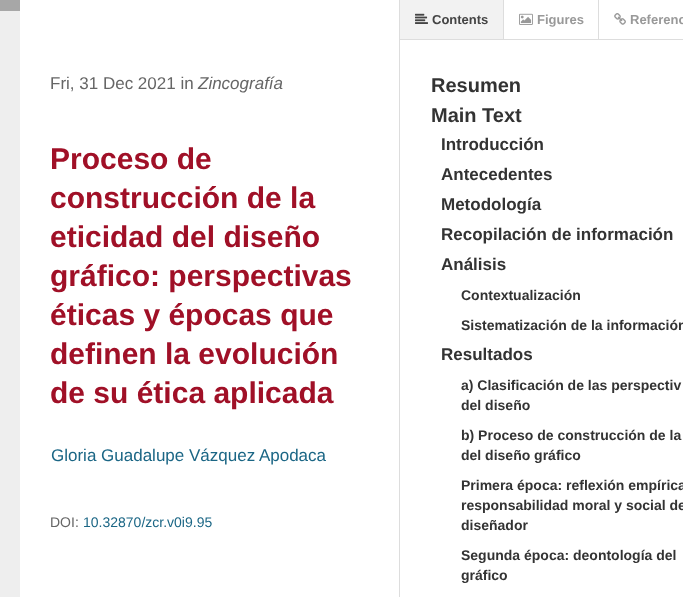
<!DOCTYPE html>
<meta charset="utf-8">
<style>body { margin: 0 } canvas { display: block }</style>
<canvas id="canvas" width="683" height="597"></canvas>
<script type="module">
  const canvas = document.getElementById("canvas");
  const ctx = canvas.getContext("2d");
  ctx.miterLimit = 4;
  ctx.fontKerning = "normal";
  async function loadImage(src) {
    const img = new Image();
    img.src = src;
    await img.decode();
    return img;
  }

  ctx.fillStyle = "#ffffff";
  ctx.fillRect(0, 0, 683, 597);
  ctx.fillStyle = "#dddddd";
  ctx.fillRect(399, 0, 1, 597);
  ctx.fillStyle = "#eeeeee";
  ctx.fillRect(0, 11, 20, 586);
  ctx.fillStyle = "#a7a7a7";
  ctx.fillRect(0, 0, 20, 11);
  ctx.font = "17px Liberation Sans";
  ctx.fillStyle = "#666666";
  ctx.fillText("Fri, 31 Dec 2021 in", 50, 89);
  ctx.font = "italic 17px Liberation Sans";
  ctx.fillText("Zincografía", 198, 89);
  ctx.font = "bold 30px Liberation Sans";
  ctx.fillStyle = "#a01027";
  ctx.fillText("Proceso de", 50, 169);
  ctx.fillText("construcción de la", 50, 208);
  ctx.fillText("eticidad del diseño", 50, 247);
  ctx.fillText("gráfico: perspectivas", 50, 286);
  ctx.fillText("éticas y épocas que", 50, 325);
  ctx.fillText("definen la evolución", 50, 364);
  ctx.fillText("de su ética aplicada", 50, 403);
  ctx.font = "17px Liberation Sans";
  ctx.fillStyle = "#1b6685";
  ctx.fillText("Gloria Guadalupe Vázquez Apodaca", 51, 461);
  ctx.font = "14px Liberation Sans";
  ctx.fillStyle = "#666666";
  ctx.fillText("DOI:", 50, 527);
  ctx.fillStyle = "#1b6685";
  ctx.fillText("10.32870/zcr.v0i9.95", 83, 527);
  ctx.fillStyle = "#dddddd";
  ctx.fillRect(400, 39, 283, 1);
  ctx.fillStyle = "#f2f2f2";
  ctx.fillRect(400, 0, 103, 39);
  ctx.save();
  ctx.beginPath();
  ctx.rect(400, 0, 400, 39);
  ctx.clip();
  ctx.fillStyle = "#dddddd";
  ctx.beginPath();
  ctx.moveTo(504, 0);
  ctx.lineTo(504, 43);
  ctx.lineTo(503, 40);
  ctx.lineTo(503, 0);
  ctx.closePath();
  ctx.fill();
  ctx.restore();
  ctx.drawImage(await loadImage("img1.png"), 415, 13, 13, 11);
  ctx.font = "bold 13px Liberation Sans";
  ctx.fillStyle = "#444444";
  ctx.fillText("Contents", 432, 24);
  ctx.fillStyle = "#dddddd";
  ctx.fillRect(598, 0, 1, 39);
  ctx.drawImage(await loadImage("img2.png"), 519, 13, 14, 12);
  ctx.fillStyle = "#999999";
  ctx.fillText("Figures", 537, 24);
  ctx.drawImage(await loadImage("img3.png"), 614, 13, 12, 12);
  ctx.fillText("Referenc", 630, 24);
  ctx.font = "bold 20px Liberation Sans";
  ctx.fillStyle = "#333333";
  ctx.fillText("Resumen", 431, 92);
  ctx.fillText("Main Text", 431, 122);
  ctx.font = "bold 17px Liberation Sans";
  ctx.fillText("Introducción", 441, 150);
  ctx.fillText("Antecedentes", 441, 180);
  ctx.fillText("Metodología", 441, 210);
  ctx.fillText("Recopilación de información", 441, 240);
  ctx.fillText("Análisis", 441, 270);
  ctx.font = "bold 14px Liberation Sans";
  ctx.fillText("Contextualización", 461, 300);
  ctx.fillText("Sistematización de la información", 461, 330);
  ctx.font = "bold 17px Liberation Sans";
  ctx.fillText("Resultados", 441, 360);
  ctx.font = "bold 14px Liberation Sans";
  ctx.fillText("a) Clasificación de las perspectiv", 461, 390);
  ctx.fillText("del diseño", 461, 410);
  ctx.fillText("b) Proceso de construcción de la", 461, 440);
  ctx.fillText("del diseño gráfico", 461, 460);
  ctx.fillText("Primera época: reflexión empírica", 461, 490);
  ctx.fillText("responsabilidad moral y social de", 461, 510);
  ctx.fillText("diseñador", 461, 530);
  ctx.fillText("Segunda época: deontología del", 461, 560);
  ctx.fillText("gráfico", 461, 580);
</script>
